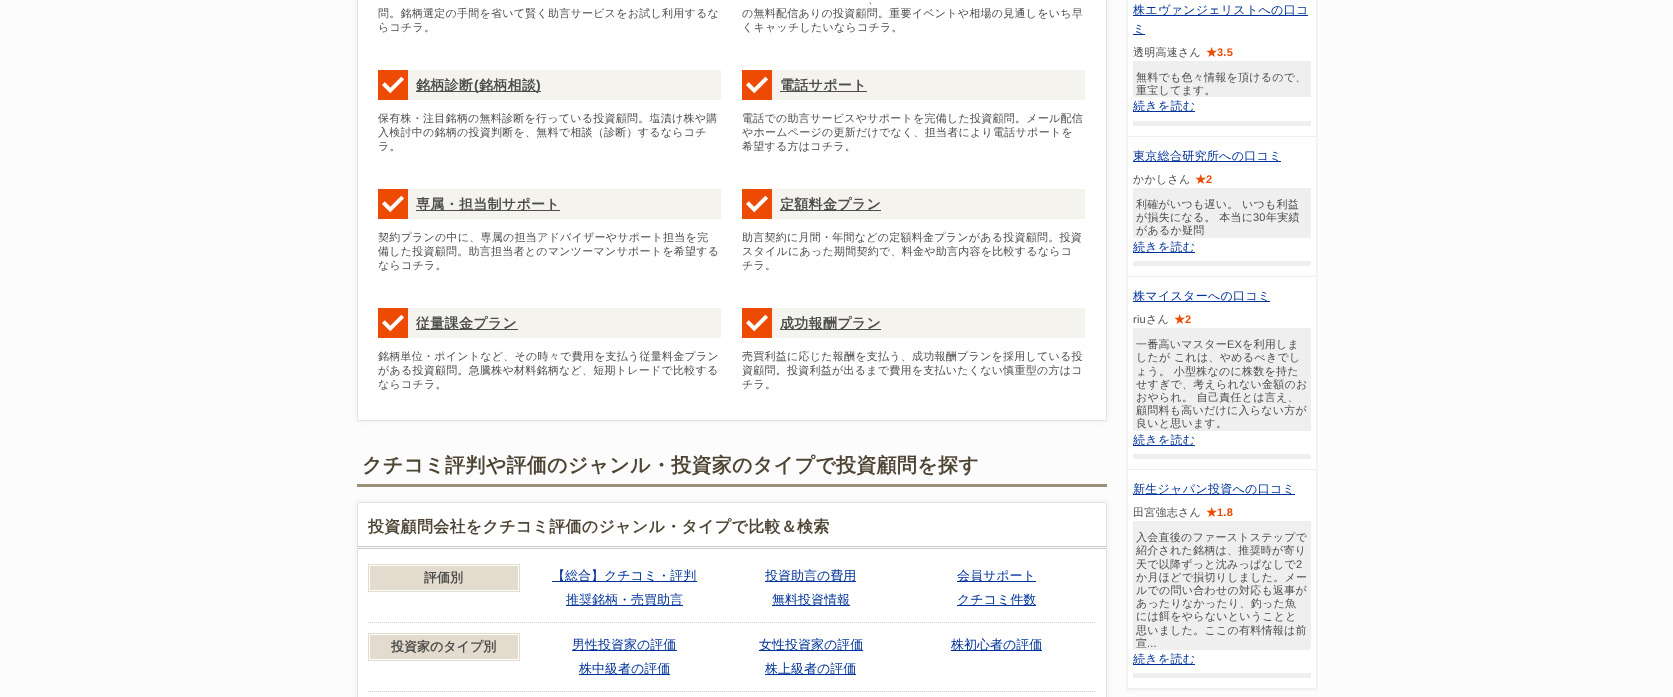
<!DOCTYPE html>
<meta charset="utf-8">
<style>body { margin: 0 } canvas { display: block }</style>
<canvas id="canvas" width="1673" height="697"></canvas>
<script type="module">
  const canvas = document.getElementById("canvas");
  const ctx = canvas.getContext("2d");
  ctx.miterLimit = 4;
  ctx.fontKerning = "normal";
  async function loadImage(src) {
    const img = new Image();
    img.src = src;
    await img.decode();
    return img;
  }

  ctx.fillStyle = "#fcfcfc";
  ctx.fillRect(0, 0, 1673, 697);
  ctx.fillStyle = "#eeeeee";
  ctx.filter = "blur(3px)";
  ctx.beginPath();
  ctx.rect(357, -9, 750, 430);
  ctx.fill();
  ctx.filter = "none";
  ctx.fillStyle = "#ffffff";
  ctx.beginPath();
  ctx.rect(357.5, -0.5, 749, 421);
  ctx.fill();
  ctx.strokeStyle = "#e2e2e2";
  ctx.stroke();
  ctx.letterSpacing = "0.25px";
  ctx.font = "500 11px WenQuanYi Zen Hei";
  ctx.fillStyle = "#4d4d4d";
  ctx.fillText("問。銘柄選定の手間を省いて賢く助言サービスをお試し利用するな", 378, 17);
  ctx.fillText("らコチラ。", 378, 31);
  ctx.fillText("、", 868, 3);
  ctx.fillText("の無料配信ありの投資顧問。重要イベントや相場の見通しをいち早", 742, 17);
  ctx.fillText("くキャッチしたいならコチラ。", 742, 31);
  ctx.fillStyle = "#ed4b03";
  ctx.fillRect(378, 70, 30, 30);
  ctx.drawImage(await loadImage("img1.png"), 382, 76, 22, 18);
  ctx.fillStyle = "#f4f3ed";
  ctx.fillRect(408, 70, 313, 30);
  ctx.fillStyle = "#4d4d4d";
  ctx.fillRect(416, 91, 125, 1);
  ctx.letterSpacing = "0.3px";
  ctx.font = "bold 14px WenQuanYi Zen Hei";
  ctx.fillText("銘柄診断", 416, 90);
  ctx.font = "bold 14px Liberation Sans";
  ctx.fillText("(", 474, 90);
  ctx.font = "bold 14px WenQuanYi Zen Hei";
  ctx.fillText("銘柄相談", 479, 90);
  ctx.font = "bold 14px Liberation Sans";
  ctx.fillText(")", 536, 90);
  ctx.letterSpacing = "0.25px";
  ctx.font = "500 11px WenQuanYi Zen Hei";
  ctx.fillText("保有株・注目銘柄の無料診断を行っている投資顧問。塩漬け株や購", 378, 122);
  ctx.fillText("入検討中の銘柄の投資判断を、無料で相談（診断）するならコチ", 378, 136);
  ctx.fillText("ラ。", 378, 150);
  ctx.fillStyle = "#ed4b03";
  ctx.fillRect(742, 70, 30, 30);
  ctx.drawImage(await loadImage("img1.png"), 746, 76, 22, 18);
  ctx.fillStyle = "#f4f3ed";
  ctx.fillRect(772, 70, 313, 30);
  ctx.fillStyle = "#4d4d4d";
  ctx.fillRect(780, 91, 87, 1);
  ctx.letterSpacing = "0.3px";
  ctx.font = "bold 14px WenQuanYi Zen Hei";
  ctx.fillText("電話サポート", 780, 90);
  ctx.letterSpacing = "0.25px";
  ctx.font = "500 11px WenQuanYi Zen Hei";
  ctx.fillText("電話での助言サービスやサポートを完備した投資顧問。メール配信", 742, 122);
  ctx.fillText("やホームページの更新だけでなく、担当者により電話サポートを", 742, 136);
  ctx.fillText("希望する方はコチラ。", 742, 150);
  ctx.fillStyle = "#ed4b03";
  ctx.fillRect(378, 189, 30, 30);
  ctx.drawImage(await loadImage("img1.png"), 382, 195, 22, 18);
  ctx.fillStyle = "#f4f3ed";
  ctx.fillRect(408, 189, 313, 30);
  ctx.fillStyle = "#4d4d4d";
  ctx.fillRect(416, 210, 144, 1);
  ctx.letterSpacing = "0.3px";
  ctx.font = "bold 14px WenQuanYi Zen Hei";
  ctx.fillText("専属・担当制サポート", 416, 209);
  ctx.letterSpacing = "0.25px";
  ctx.font = "500 11px WenQuanYi Zen Hei";
  ctx.fillText("契約プランの中に、専属の担当アドバイザーやサポート担当を完", 378, 241);
  ctx.fillText("備した投資顧問。助言担当者とのマンツーマンサポートを希望する", 378, 255);
  ctx.fillText("ならコチラ。", 378, 269);
  ctx.fillStyle = "#ed4b03";
  ctx.fillRect(742, 189, 30, 30);
  ctx.drawImage(await loadImage("img1.png"), 746, 195, 22, 18);
  ctx.fillStyle = "#f4f3ed";
  ctx.fillRect(772, 189, 313, 30);
  ctx.fillStyle = "#4d4d4d";
  ctx.fillRect(780, 210, 101, 1);
  ctx.letterSpacing = "0.3px";
  ctx.font = "bold 14px WenQuanYi Zen Hei";
  ctx.fillText("定額料金プラン", 780, 209);
  ctx.letterSpacing = "0.25px";
  ctx.font = "500 11px WenQuanYi Zen Hei";
  ctx.fillText("助言契約に月間・年間などの定額料金プランがある投資顧問。投資", 742, 241);
  ctx.fillText("スタイルにあった期間契約で、料金や助言内容を比較するならコ", 742, 255);
  ctx.fillText("チラ。", 742, 269);
  ctx.fillStyle = "#ed4b03";
  ctx.fillRect(378, 308, 30, 30);
  ctx.drawImage(await loadImage("img1.png"), 382, 314, 22, 18);
  ctx.fillStyle = "#f4f3ed";
  ctx.fillRect(408, 308, 313, 30);
  ctx.fillStyle = "#4d4d4d";
  ctx.fillRect(416, 329, 102, 1);
  ctx.letterSpacing = "0.3px";
  ctx.font = "bold 14px WenQuanYi Zen Hei";
  ctx.fillText("従量課金プラン", 416, 328);
  ctx.letterSpacing = "0.25px";
  ctx.font = "500 11px WenQuanYi Zen Hei";
  ctx.fillText("銘柄単位・ポイントなど、その時々で費用を支払う従量料金プラン", 378, 360);
  ctx.fillText("がある投資顧問。急騰株や材料銘柄など、短期トレードで比較する", 378, 374);
  ctx.fillText("ならコチラ。", 378, 388);
  ctx.fillStyle = "#ed4b03";
  ctx.fillRect(742, 308, 30, 30);
  ctx.drawImage(await loadImage("img1.png"), 746, 314, 22, 18);
  ctx.fillStyle = "#f4f3ed";
  ctx.fillRect(772, 308, 313, 30);
  ctx.fillStyle = "#4d4d4d";
  ctx.fillRect(780, 329, 101, 1);
  ctx.letterSpacing = "0.3px";
  ctx.font = "bold 14px WenQuanYi Zen Hei";
  ctx.fillText("成功報酬プラン", 780, 328);
  ctx.letterSpacing = "0.25px";
  ctx.font = "500 11px WenQuanYi Zen Hei";
  ctx.fillText("売買利益に応じた報酬を支払う、成功報酬プランを採用している投", 742, 360);
  ctx.fillText("資顧問。投資利益が出るまで費用を支払いたくない慎重型の方はコ", 742, 374);
  ctx.fillText("チラ。", 742, 388);
  ctx.fillStyle = "#9d9177";
  ctx.fillRect(357, 484, 750, 3);
  ctx.letterSpacing = "0.3px";
  ctx.font = "bold 20px WenQuanYi Zen Hei";
  ctx.fillStyle = "#4e4535";
  ctx.fillText("クチコミ評判や評価のジャンル・投資家のタイプで投資顧問を探す", 362, 472);
  ctx.fillStyle = "#eeeeee";
  ctx.filter = "blur(3px)";
  ctx.beginPath();
  ctx.rect(357, 502, 750, 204);
  ctx.fill();
  ctx.filter = "none";
  ctx.fillStyle = "#ffffff";
  ctx.beginPath();
  ctx.rect(357.5, 502.5, 749, 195);
  ctx.fill();
  ctx.stroke();
  ctx.fillStyle = "#cccccc";
  ctx.fillRect(358, 546, 748, 1);
  ctx.fillRect(358, 548, 748, 1);
  ctx.font = "bold 16px WenQuanYi Zen Hei";
  ctx.fillStyle = "#4e4535";
  ctx.fillText("投資顧問会社をクチコミ評価のジャンル・タイプで比較＆検索", 368, 532);
  ctx.fillStyle = "#e3dbcd";
  ctx.fillRect(368, 564, 152, 28);
  ctx.strokeStyle = "#ffffff";
  ctx.strokeRect(369.5, 565.5, 149, 25);
  ctx.letterSpacing = "0px";
  ctx.font = "bold 13px WenQuanYi Zen Hei";
  ctx.fillStyle = "#4d4d4d";
  ctx.fillText("評価別", 424, 582);
  ctx.fillStyle = "#003399";
  ctx.fillRect(552, 581, 145, 1);
  ctx.font = "500 13px WenQuanYi Zen Hei";
  ctx.fillText("【総合】クチコミ・評判", 552, 580);
  ctx.fillRect(765, 581, 91, 1);
  ctx.fillText("投資助言の費用", 765, 580);
  ctx.fillRect(957, 581, 79, 1);
  ctx.fillText("会員サポート", 957, 580);
  ctx.fillRect(566, 605, 117, 1);
  ctx.fillText("推奨銘柄・売買助言", 566, 604);
  ctx.fillRect(772, 605, 78, 1);
  ctx.fillText("無料投資情報", 772, 604);
  ctx.fillRect(957, 605, 79, 1);
  ctx.fillText("クチコミ件数", 957, 604);
  ctx.beginPath();
  ctx.moveTo(368, 622.5);
  ctx.lineTo(1096, 622.5);
  ctx.strokeStyle = "#cccccc";
  ctx.setLineDash([1, 1]);
  ctx.stroke();
  ctx.fillStyle = "#e3dbcd";
  ctx.fillRect(368, 633, 152, 28);
  ctx.strokeStyle = "#ffffff";
  ctx.setLineDash([]);
  ctx.strokeRect(369.5, 634.5, 149, 25);
  ctx.font = "bold 13px WenQuanYi Zen Hei";
  ctx.fillStyle = "#4d4d4d";
  ctx.fillText("投資家のタイプ別", 391, 651);
  ctx.fillStyle = "#003399";
  ctx.fillRect(572, 650, 105, 1);
  ctx.font = "500 13px WenQuanYi Zen Hei";
  ctx.fillText("男性投資家の評価", 572, 649);
  ctx.fillRect(759, 650, 104, 1);
  ctx.fillText("女性投資家の評価", 759, 649);
  ctx.fillRect(951, 650, 91, 1);
  ctx.fillText("株初心者の評価", 951, 649);
  ctx.fillRect(579, 674, 91, 1);
  ctx.fillText("株中級者の評価", 579, 673);
  ctx.fillRect(765, 674, 91, 1);
  ctx.fillText("株上級者の評価", 765, 673);
  ctx.beginPath();
  ctx.moveTo(368, 691.5);
  ctx.lineTo(1096, 691.5);
  ctx.strokeStyle = "#cccccc";
  ctx.setLineDash([1, 1]);
  ctx.stroke();
  ctx.fillStyle = "#eeeeee";
  ctx.filter = "blur(1.5px)";
  ctx.beginPath();
  ctx.rect(1127, -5, 190, 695);
  ctx.fill();
  ctx.filter = "none";
  ctx.strokeStyle = "#eeeeee";
  ctx.setLineDash([]);
  ctx.strokeRect(1127.5, -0.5, 189, 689);
  ctx.fillStyle = "#ffffff";
  ctx.fillRect(1128, 0, 188, 688);
  ctx.fillStyle = "#003399";
  ctx.fillRect(1133, 15, 175, 1);
  ctx.letterSpacing = "0.3px";
  ctx.font = "500 12px WenQuanYi Zen Hei";
  ctx.fillText("株エヴァンジェリストへの口コ", 1133, 14);
  ctx.fillRect(1133, 34, 12, 1);
  ctx.fillText("ミ", 1133, 33);
  ctx.letterSpacing = "0.25px";
  ctx.font = "500 11px WenQuanYi Zen Hei";
  ctx.fillStyle = "#4d4d4d";
  ctx.fillText("透明高速さん", 1133, 56);
  ctx.font = "bold 11px WenQuanYi Zen Hei";
  ctx.fillStyle = "#ed4b03";
  ctx.fillText("★", 1206, 56);
  ctx.font = "bold 11px Liberation Sans";
  ctx.fillText("3.5", 1217, 56);
  ctx.fillStyle = "#efefef";
  ctx.fillRect(1133, 61, 178, 36);
  ctx.font = "500 11px WenQuanYi Zen Hei";
  ctx.fillStyle = "#4d4d4d";
  ctx.fillText("無料でも色々情報を頂けるので、", 1136, 81);
  ctx.fillText("重宝してます。", 1136, 94);
  ctx.fillStyle = "#003399";
  ctx.fillRect(1133, 111, 62, 1);
  ctx.letterSpacing = "0.3px";
  ctx.font = "500 12px WenQuanYi Zen Hei";
  ctx.fillText("続きを読む", 1133, 110);
  ctx.fillStyle = "#efefef";
  ctx.fillRect(1133, 121, 178, 5);
  ctx.beginPath();
  ctx.moveTo(1128, 136.5);
  ctx.lineTo(1316, 136.5);
  ctx.strokeStyle = "#dfdfdf";
  ctx.setLineDash([1, 1]);
  ctx.stroke();
  ctx.fillStyle = "#003399";
  ctx.fillRect(1133, 161, 148, 1);
  ctx.fillText("東京総合研究所への口コミ", 1133, 160);
  ctx.letterSpacing = "0.25px";
  ctx.font = "500 11px WenQuanYi Zen Hei";
  ctx.fillStyle = "#4d4d4d";
  ctx.fillText("かかしさん", 1133, 183);
  ctx.font = "bold 11px WenQuanYi Zen Hei";
  ctx.fillStyle = "#ed4b03";
  ctx.fillText("★", 1195, 183);
  ctx.font = "bold 11px Liberation Sans";
  ctx.fillText("2", 1206, 183);
  ctx.fillStyle = "#efefef";
  ctx.fillRect(1133, 188, 178, 50);
  ctx.font = "500 11px WenQuanYi Zen Hei";
  ctx.fillStyle = "#4d4d4d";
  ctx.fillText("利確がいつも遅い。 いつも利益", 1136, 208);
  ctx.fillText("が損失になる。 本当に", 1136, 221);
  ctx.font = "11px Liberation Sans";
  ctx.fillText("30", 1253, 221);
  ctx.font = "500 11px WenQuanYi Zen Hei";
  ctx.fillText("年実績", 1266, 221);
  ctx.fillText("があるか疑問", 1136, 234);
  ctx.fillStyle = "#003399";
  ctx.fillRect(1133, 252, 62, 1);
  ctx.letterSpacing = "0.3px";
  ctx.font = "500 12px WenQuanYi Zen Hei";
  ctx.fillText("続きを読む", 1133, 251);
  ctx.fillStyle = "#efefef";
  ctx.fillRect(1133, 261, 178, 5);
  ctx.beginPath();
  ctx.moveTo(1128, 276.5);
  ctx.lineTo(1316, 276.5);
  ctx.stroke();
  ctx.fillStyle = "#003399";
  ctx.fillRect(1133, 301, 137, 1);
  ctx.fillText("株マイスターへの口コミ", 1133, 300);
  ctx.letterSpacing = "0.25px";
  ctx.font = "11px Liberation Sans";
  ctx.fillStyle = "#4d4d4d";
  ctx.fillText("riu", 1133, 323);
  ctx.font = "500 11px WenQuanYi Zen Hei";
  ctx.fillText("さん", 1146, 323);
  ctx.font = "bold 11px WenQuanYi Zen Hei";
  ctx.fillStyle = "#ed4b03";
  ctx.fillText("★", 1174, 323);
  ctx.font = "bold 11px Liberation Sans";
  ctx.fillText("2", 1185, 323);
  ctx.fillStyle = "#efefef";
  ctx.fillRect(1133, 328, 178, 103);
  ctx.font = "500 11px WenQuanYi Zen Hei";
  ctx.fillStyle = "#4d4d4d";
  ctx.fillText("一番高いマスター", 1136, 348);
  ctx.font = "11px Liberation Sans";
  ctx.fillText("EX", 1227, 348);
  ctx.font = "500 11px WenQuanYi Zen Hei";
  ctx.fillText("を利用しま", 1242, 348);
  ctx.fillText("したが これは、やめるべきでし", 1136, 361);
  ctx.fillText("ょう。 小型株なのに株数を持た", 1136, 375);
  ctx.fillText("せすぎで、考えられない金額のお", 1136, 388);
  ctx.fillText("おやられ。 自己責任とは言え、", 1136, 401);
  ctx.fillText("顧問料も高いだけに入らない方が", 1136, 414);
  ctx.fillText("良いと思います。", 1136, 427);
  ctx.fillStyle = "#003399";
  ctx.fillRect(1133, 445, 62, 1);
  ctx.letterSpacing = "0.3px";
  ctx.font = "500 12px WenQuanYi Zen Hei";
  ctx.fillText("続きを読む", 1133, 444);
  ctx.fillStyle = "#efefef";
  ctx.fillRect(1133, 454, 178, 5);
  ctx.beginPath();
  ctx.moveTo(1128, 469.5);
  ctx.lineTo(1316, 469.5);
  ctx.stroke();
  ctx.fillStyle = "#003399";
  ctx.fillRect(1133, 494, 162, 1);
  ctx.fillText("新生ジャパン投資への口コミ", 1133, 493);
  ctx.letterSpacing = "0.25px";
  ctx.font = "500 11px WenQuanYi Zen Hei";
  ctx.fillStyle = "#4d4d4d";
  ctx.fillText("田宮強志さん", 1133, 516);
  ctx.font = "bold 11px WenQuanYi Zen Hei";
  ctx.fillStyle = "#ed4b03";
  ctx.fillText("★", 1206, 516);
  ctx.font = "bold 11px Liberation Sans";
  ctx.fillText("1.8", 1217, 516);
  ctx.fillStyle = "#efefef";
  ctx.fillRect(1133, 521, 178, 129);
  ctx.font = "500 11px WenQuanYi Zen Hei";
  ctx.fillStyle = "#4d4d4d";
  ctx.fillText("入会直後のファーストステップで", 1136, 541);
  ctx.fillText("紹介された銘柄は、推奨時が寄り", 1136, 554);
  ctx.fillText("天で以降ずっと沈みっぱなしで", 1136, 568);
  ctx.font = "11px Liberation Sans";
  ctx.fillText("2", 1296, 568);
  ctx.font = "500 11px WenQuanYi Zen Hei";
  ctx.fillText("か月ほどで損切りしました。メー", 1136, 581);
  ctx.fillText("ルでの問い合わせの対応も返事が", 1136, 594);
  ctx.fillText("あったりなかったり、釣った魚", 1136, 607);
  ctx.fillText("には餌をやらないということと", 1136, 620);
  ctx.fillText("思いました。ここの有料情報は前", 1136, 634);
  ctx.fillText("宣", 1136, 647);
  ctx.font = "11px Liberation Sans";
  ctx.fillText("...", 1147, 647);
  ctx.fillStyle = "#003399";
  ctx.fillRect(1133, 664, 62, 1);
  ctx.letterSpacing = "0.3px";
  ctx.font = "500 12px WenQuanYi Zen Hei";
  ctx.fillText("続きを読む", 1133, 663);
  ctx.fillStyle = "#efefef";
  ctx.fillRect(1133, 673, 178, 5);
</script>
